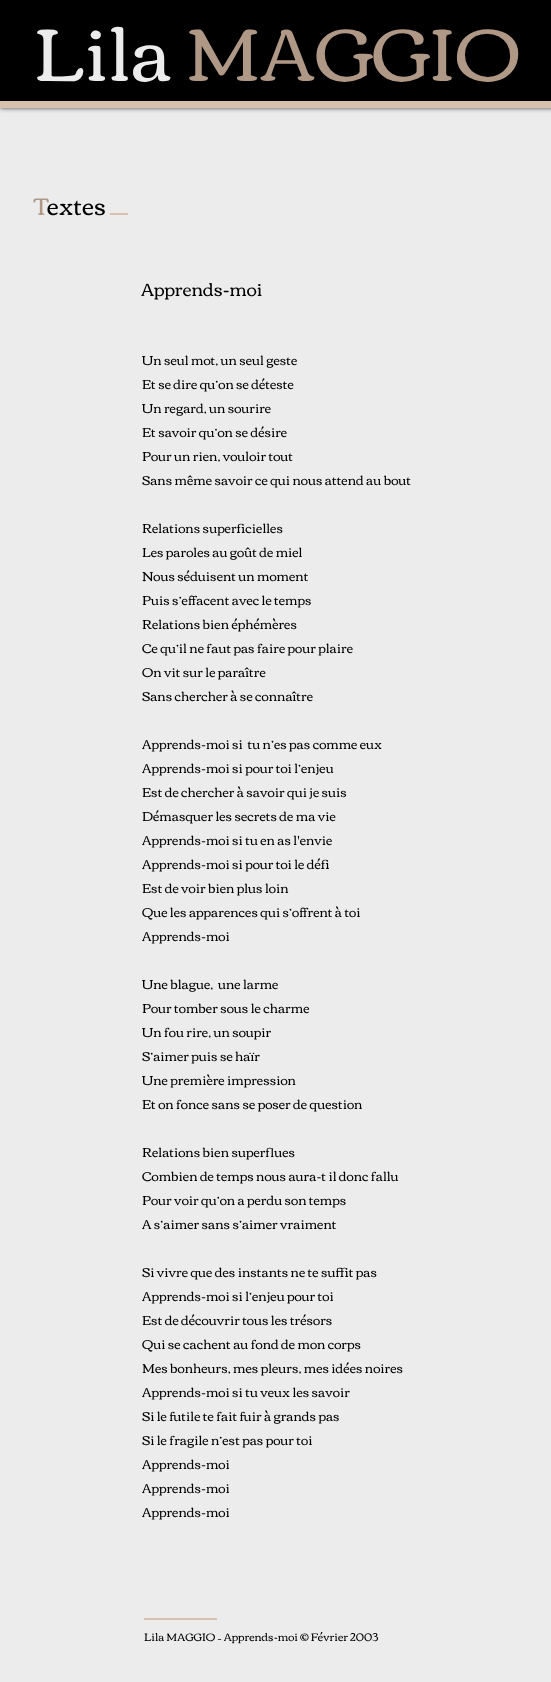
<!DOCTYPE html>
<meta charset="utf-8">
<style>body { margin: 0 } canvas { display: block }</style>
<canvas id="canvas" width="551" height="1682"></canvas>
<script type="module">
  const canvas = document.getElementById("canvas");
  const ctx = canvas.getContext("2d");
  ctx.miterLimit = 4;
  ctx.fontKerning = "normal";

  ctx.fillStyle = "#ececec";
  ctx.fillRect(0, 0, 551, 1682);
  ctx.fillStyle = "rgba(0, 0, 0, 0.7)";
  ctx.filter = "blur(2.5px)";
  ctx.beginPath();
  ctx.rect(0, 0, 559, 108);
  ctx.fill();
  ctx.filter = "none";
  ctx.fillStyle = "#000000";
  ctx.fillRect(0, 0, 551, 101);
  ctx.fillStyle = "#d7c0ae";
  ctx.fillRect(0, 101, 551, 7);
  ctx.font = "75px Corben";
  ctx.fillStyle = "#ececec";
  ctx.fillText("Lila", 34, 81);
  ctx.fillStyle = "#b09886";
  ctx.fillText("MAGGIO", 186, 81);
  ctx.font = "24px Corben";
  ctx.fillText("T", 34, 215);
  ctx.fillStyle = "#000000";
  ctx.fillText("extes", 47, 215);
  ctx.fillStyle = "#d7c0ae";
  ctx.fillRect(110, 213, 18, 2);
  ctx.font = "18px Corben";
  ctx.fillStyle = "#000000";
  ctx.fillText("Apprends-moi", 141, 296);
  ctx.font = "13px Corben";
  ctx.fillText("Un seul mot, un seul geste", 142, 365);
  ctx.fillText("Et se dire qu’on se déteste", 142, 389);
  ctx.fillText("Un regard, un sourire", 142, 413);
  ctx.fillText("Et savoir qu’on se désire", 142, 437);
  ctx.fillText("Pour un rien, vouloir tout", 142, 461);
  ctx.fillText("Sans même savoir ce qui nous attend au bout", 142, 485);
  ctx.fillText("Relations superficielles", 142, 533);
  ctx.fillText("Les paroles au goût de miel", 142, 557);
  ctx.fillText("Nous séduisent un moment", 142, 581);
  ctx.fillText("Puis s’effacent avec le temps", 142, 605);
  ctx.fillText("Relations bien éphémères", 142, 629);
  ctx.fillText("Ce qu’il ne faut pas faire pour plaire", 142, 653);
  ctx.fillText("On vit sur le paraître", 142, 677);
  ctx.fillText("Sans chercher à se connaître", 142, 701);
  ctx.fillText("Apprends-moi si  tu n’es pas comme eux", 142, 749);
  ctx.fillText("Apprends-moi si pour toi l’enjeu", 142, 773);
  ctx.fillText("Est de chercher à savoir qui je suis", 142, 797);
  ctx.fillText("Démasquer les secrets de ma vie", 142, 821);
  ctx.fillText("Apprends-moi si tu en as l'envie", 142, 845);
  ctx.fillText("Apprends-moi si pour toi le défi", 142, 869);
  ctx.fillText("Est de voir bien plus loin", 142, 893);
  ctx.fillText("Que les apparences qui s’offrent à toi", 142, 917);
  ctx.fillText("Apprends-moi", 142, 941);
  ctx.fillText("Une blague,  une larme", 142, 989);
  ctx.fillText("Pour tomber sous le charme", 142, 1013);
  ctx.fillText("Un fou rire, un soupir", 142, 1037);
  ctx.fillText("S’aimer puis se haïr", 142, 1061);
  ctx.fillText("Une première impression", 142, 1085);
  ctx.fillText("Et on fonce sans se poser de question", 142, 1109);
  ctx.fillText("Relations bien superflues", 142, 1157);
  ctx.fillText("Combien de temps nous aura-t il donc fallu", 142, 1181);
  ctx.fillText("Pour voir qu’on a perdu son temps", 142, 1205);
  ctx.fillText("A s’aimer sans s’aimer vraiment", 142, 1229);
  ctx.fillText("Si vivre que des instants ne te suffit pas", 142, 1277);
  ctx.fillText("Apprends-moi si l’enjeu pour toi", 142, 1301);
  ctx.fillText("Est de découvrir tous les trésors", 142, 1325);
  ctx.fillText("Qui se cachent au fond de mon corps", 142, 1349);
  ctx.fillText("Mes bonheurs, mes pleurs, mes idées noires", 142, 1373);
  ctx.fillText("Apprends-moi si tu veux les savoir", 142, 1397);
  ctx.fillText("Si le futile te fait fuir à grands pas", 142, 1421);
  ctx.fillText("Si le fragile n’est pas pour toi", 142, 1445);
  ctx.fillText("Apprends-moi", 142, 1469);
  ctx.fillText("Apprends-moi", 142, 1493);
  ctx.fillText("Apprends-moi", 142, 1517);
  ctx.fillStyle = "#d7c0ae";
  ctx.fillRect(144, 1618, 73, 2);
  ctx.font = "11px Corben";
  ctx.fillStyle = "#000000";
  ctx.fillText("Lila MAGGIO – Apprends-moi © Février 2003", 144, 1641);
</script>
